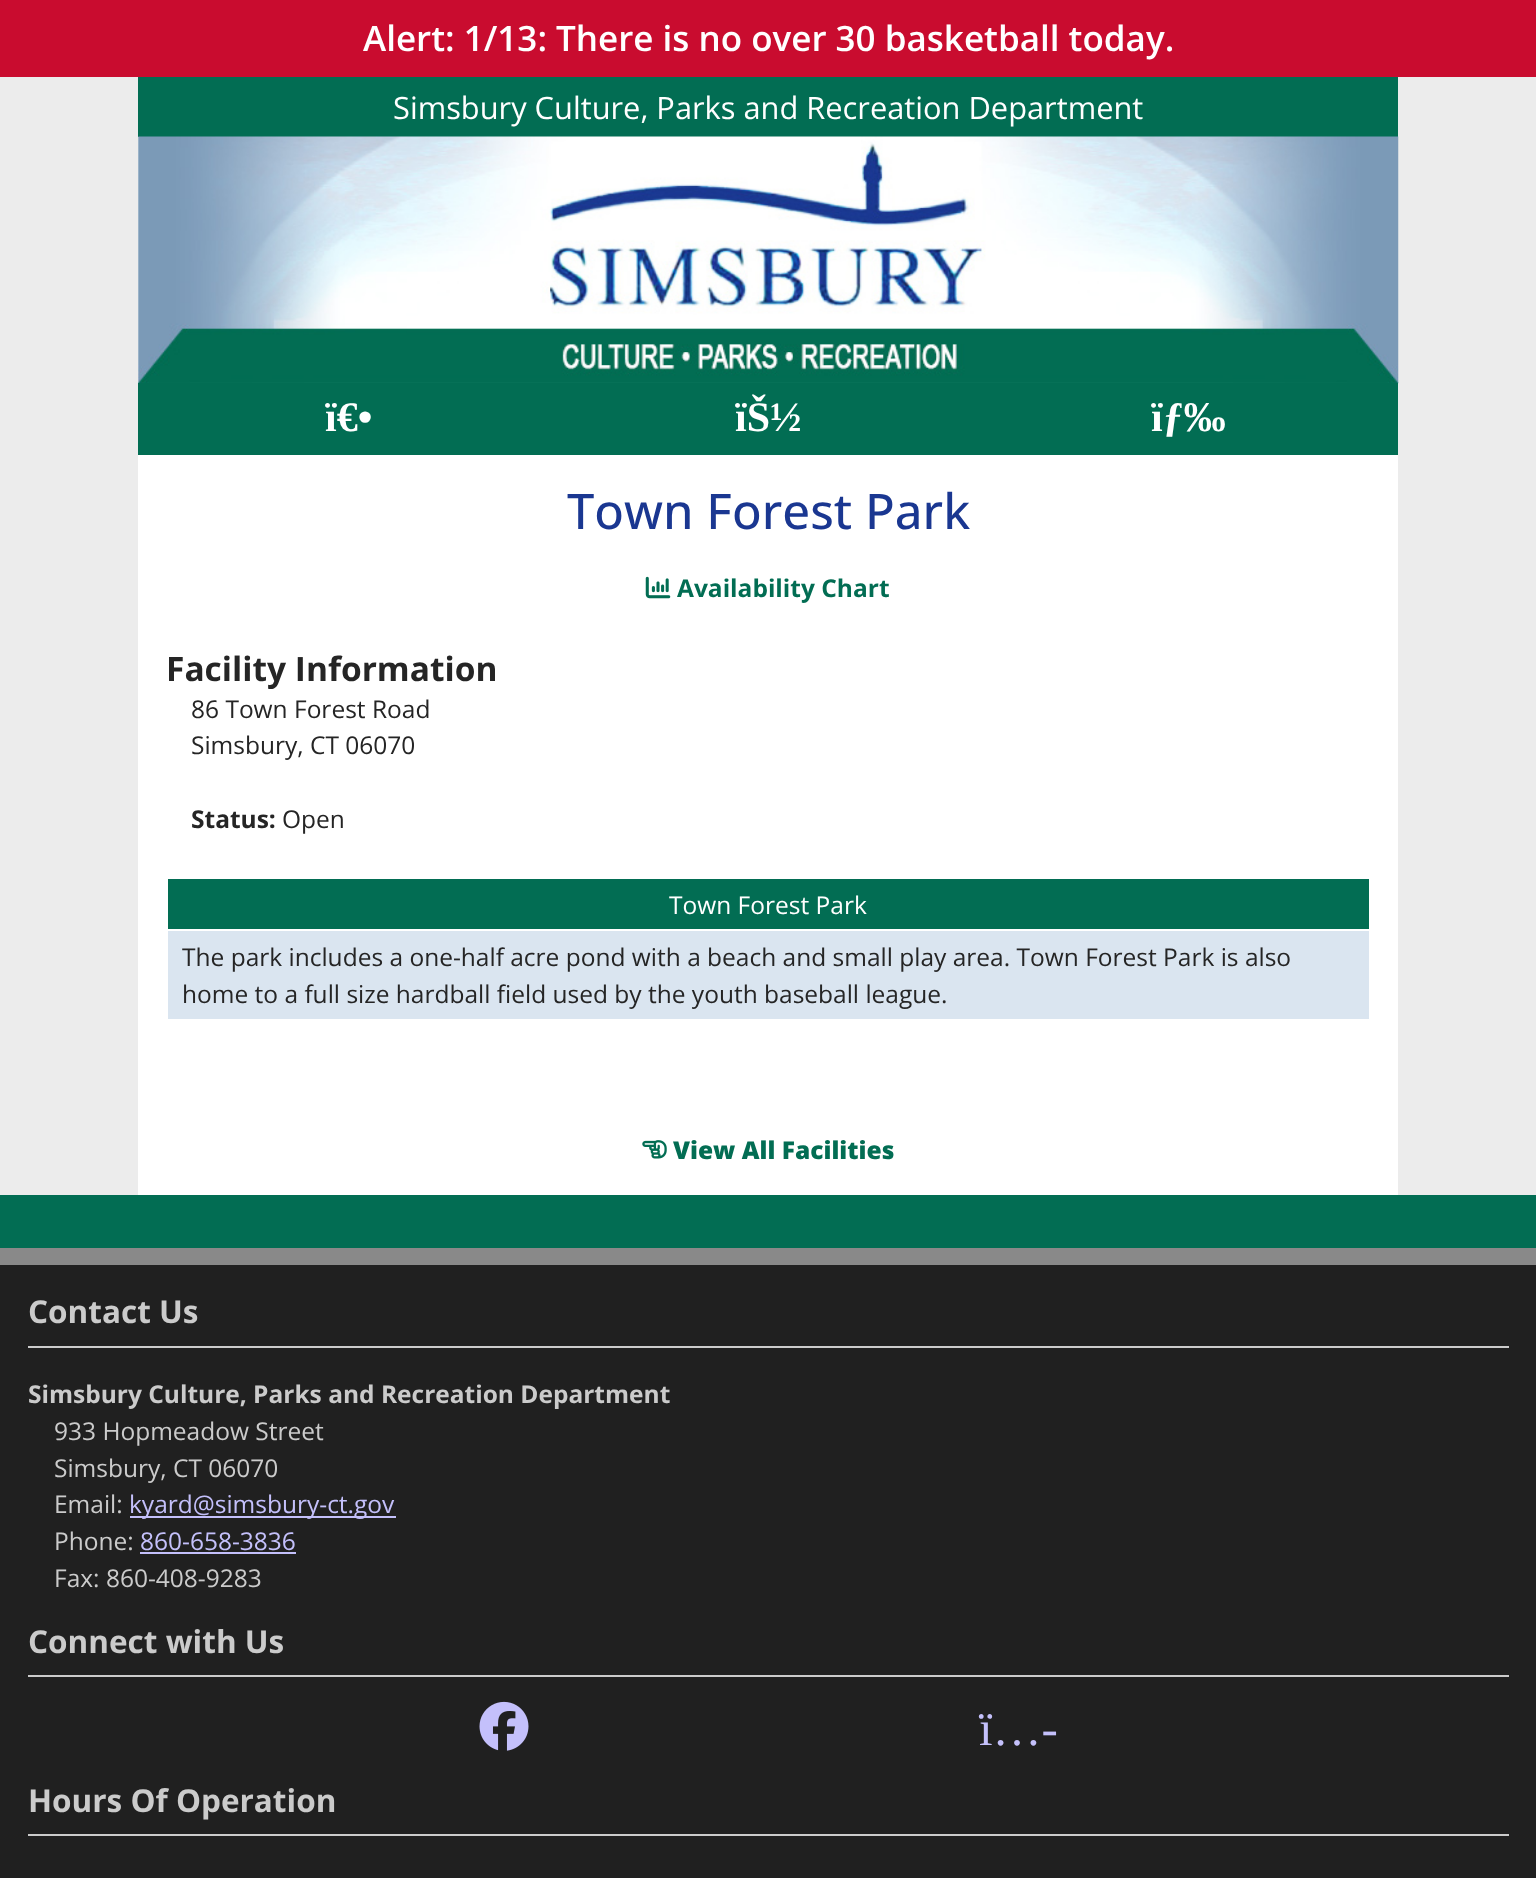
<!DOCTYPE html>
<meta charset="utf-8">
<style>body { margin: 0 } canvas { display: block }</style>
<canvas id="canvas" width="1536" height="1878"></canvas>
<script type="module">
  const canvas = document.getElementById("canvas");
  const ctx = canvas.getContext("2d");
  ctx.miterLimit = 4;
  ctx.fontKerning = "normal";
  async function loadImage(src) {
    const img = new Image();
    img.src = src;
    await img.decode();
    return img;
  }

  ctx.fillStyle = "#ececec";
  ctx.fillRect(0, 0, 1536, 1878);
  ctx.fillStyle = "#c90c2f";
  ctx.fillRect(0, 0, 1536, 77);
  ctx.font = "600 35px Open Sans";
  ctx.fillStyle = "#ffffff";
  ctx.fillText("Alert: 1/13: There is no over 30 basketball today.", 363, 51);
  ctx.fillRect(138, 137, 1260, 1058);
  ctx.fillStyle = "#026d53";
  ctx.fillRect(138, 77, 1260, 60);
  ctx.font = "30.8px Open Sans";
  ctx.fillStyle = "#ffffff";
  ctx.fillText("Simsbury Culture, Parks and Recreation Department", 393, 119);
  ctx.drawImage(await loadImage("img1.png"), 138, 136, 1261, 248);
  ctx.fillStyle = "#026d53";
  ctx.fillRect(138, 383, 1260, 72);
  ctx.font = "bold 42px Liberation Serif";
  ctx.fillStyle = "#ffffff";
  ctx.fillText("ï€•", 325, 431);
  ctx.fillText("ïŠ½", 735, 431);
  ctx.fillText("ïƒ‰", 1151, 431);
  ctx.font = "500 49px Open Sans";
  ctx.fillStyle = "#1a3791";
  ctx.fillText("Town Forest Park", 567, 529);
  ctx.drawImage(await loadImage("img2.png"), 645, 576, 26, 23);
  ctx.font = "bold 24.5px Open Sans";
  ctx.fillStyle = "#026d53";
  ctx.fillText("Availability Chart", 677, 597);
  ctx.font = "bold 33.5px Open Sans";
  ctx.fillStyle = "#252525";
  ctx.fillText("Facility Information", 166, 681);
  ctx.font = "24.5px Open Sans";
  ctx.fillText("86 Town Forest Road", 191, 718);
  ctx.fillText("Simsbury, CT 06070", 191, 754);
  ctx.font = "bold 24.5px Open Sans";
  ctx.fillText("Status:", 191, 828);
  ctx.font = "24.5px Open Sans";
  ctx.fillText("Open", 282, 828);
  ctx.fillStyle = "#026d53";
  ctx.fillRect(168, 879, 1201, 50);
  ctx.fillStyle = "#ffffff";
  ctx.fillText("Town Forest Park", 669, 914);
  ctx.fillStyle = "#dae5f0";
  ctx.fillRect(168, 931, 1201, 88);
  ctx.fillStyle = "#252525";
  ctx.fillText("The park includes a one-half acre pond with a beach and small play area. Town Forest Park is also", 182, 966);
  ctx.fillText("home to a full size hardball field used by the youth baseball league.", 182, 1003);
  ctx.drawImage(await loadImage("img3.png"), 642, 1140, 25, 19);
  ctx.font = "800 24.5px Open Sans";
  ctx.fillStyle = "#026d53";
  ctx.fillText("View All Facilities", 673, 1159);
  ctx.fillRect(0, 1195, 1536, 53);
  ctx.fillStyle = "#202020";
  ctx.fillRect(0, 1265, 1536, 613);
  ctx.fillStyle = "#898989";
  ctx.fillRect(0, 1248, 1536, 17);
  ctx.fillStyle = "#cbcbcb";
  ctx.fillRect(28, 1346, 1481, 2);
  ctx.font = "bold 31.5px Open Sans";
  ctx.fillText("Contact Us", 28, 1323);
  ctx.font = "bold 24.5px Open Sans";
  ctx.fillText("Simsbury Culture, Parks and Recreation Department", 28, 1403);
  ctx.font = "24.5px Open Sans";
  ctx.fillText("933 Hopmeadow Street", 54, 1440);
  ctx.fillText("Simsbury, CT 06070", 54, 1477);
  ctx.fillText("Email:", 54, 1513);
  ctx.fillStyle = "#c4c0fb";
  ctx.fillRect(130, 1516, 266, 2);
  ctx.fillText("kyard@simsbury-ct.gov", 129, 1513);
  ctx.fillStyle = "#cbcbcb";
  ctx.fillText("Phone:", 54, 1550);
  ctx.fillStyle = "#c4c0fb";
  ctx.fillText("860-658-3836", 140, 1550);
  ctx.fillRect(140, 1552, 156, 2);
  ctx.fillStyle = "#cbcbcb";
  ctx.fillText("Fax: 860-408-9283", 54, 1587);
  ctx.fillRect(28, 1675, 1481, 2);
  ctx.font = "bold 31.5px Open Sans";
  ctx.fillText("Connect with Us", 28, 1653);
  ctx.drawImage(await loadImage("img4.png"), 479, 1701, 50, 50);
  ctx.font = "49px Liberation Serif";
  ctx.fillStyle = "#c4c0fb";
  ctx.fillText("ï…-", 979, 1745);
  ctx.fillStyle = "#cbcbcb";
  ctx.fillRect(28, 1834, 1481, 2);
  ctx.font = "bold 31.5px Open Sans";
  ctx.fillText("Hours Of Operation", 28, 1812);
</script>
